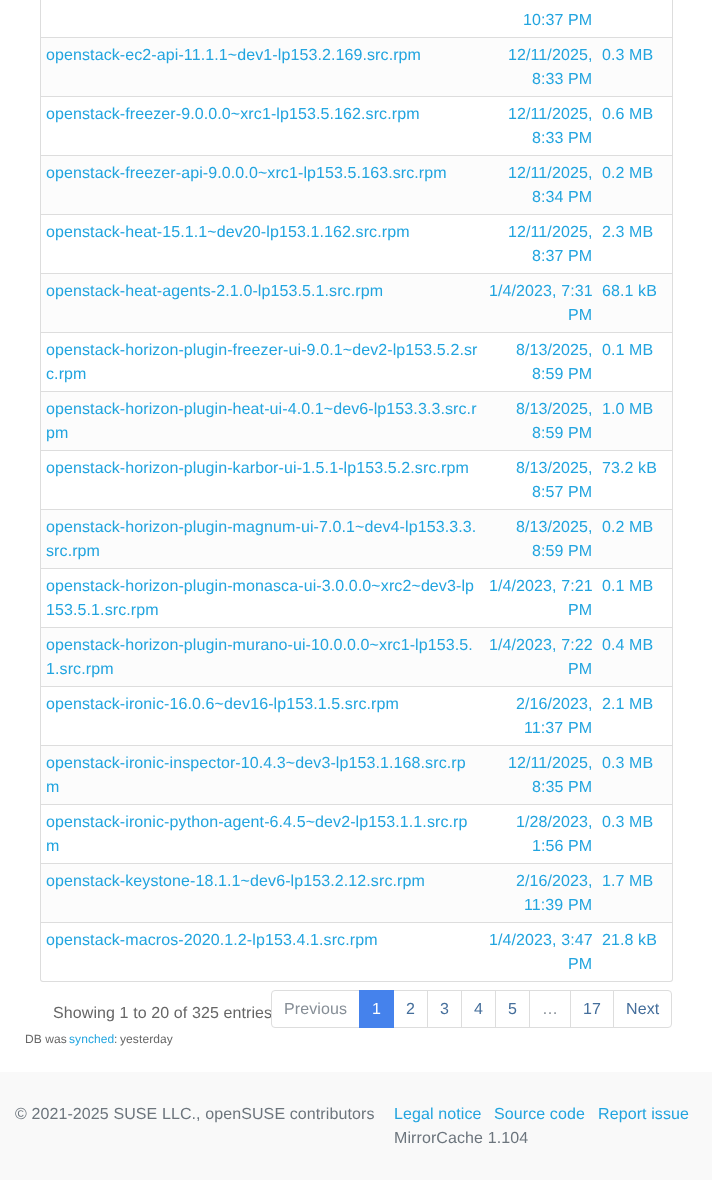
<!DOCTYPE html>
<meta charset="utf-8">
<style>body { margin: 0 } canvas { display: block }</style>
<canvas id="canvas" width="712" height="1180"></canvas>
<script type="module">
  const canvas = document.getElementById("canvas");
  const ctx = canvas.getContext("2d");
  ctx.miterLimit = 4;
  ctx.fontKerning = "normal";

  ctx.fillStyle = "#ffffff";
  ctx.fillRect(0, 0, 712, 1180);
  ctx.fillStyle = "#dddddd";
  ctx.fillRect(40, 0, 1, 37);
  ctx.letterSpacing = "0.1px";
  ctx.font = "16px Liberation Sans";
  ctx.fillStyle = "#21a4df";
  ctx.fillText("10:37 PM", 523, 25);
  ctx.fillStyle = "#dddddd";
  ctx.fillRect(672, 0, 1, 37);
  ctx.fillStyle = "#fcfcfc";
  ctx.fillRect(41, 38, 631, 58);
  ctx.fillStyle = "#dddddd";
  ctx.fillRect(40, 37, 633, 1);
  ctx.fillRect(40, 37, 1, 59);
  ctx.fillStyle = "#21a4df";
  ctx.fillText("openstack-ec2-api-11.1.1~dev1-lp153.2.169.src.rpm", 46, 60);
  ctx.fillText("12/11/2025,", 508, 60);
  ctx.fillText("8:33 PM", 532, 84);
  ctx.fillStyle = "#dddddd";
  ctx.fillRect(672, 37, 1, 59);
  ctx.fillStyle = "#21a4df";
  ctx.fillText("0.3 MB", 602, 60);
  ctx.fillStyle = "#dddddd";
  ctx.fillRect(40, 96, 633, 1);
  ctx.fillRect(40, 96, 1, 59);
  ctx.fillStyle = "#21a4df";
  ctx.fillText("openstack-freezer-9.0.0.0~xrc1-lp153.5.162.src.rpm", 46, 119);
  ctx.fillText("12/11/2025,", 508, 119);
  ctx.fillText("8:33 PM", 532, 143);
  ctx.fillStyle = "#dddddd";
  ctx.fillRect(672, 96, 1, 59);
  ctx.fillStyle = "#21a4df";
  ctx.fillText("0.6 MB", 602, 119);
  ctx.fillStyle = "#fcfcfc";
  ctx.fillRect(41, 156, 631, 58);
  ctx.fillStyle = "#dddddd";
  ctx.fillRect(40, 155, 633, 1);
  ctx.fillRect(40, 155, 1, 59);
  ctx.fillStyle = "#21a4df";
  ctx.fillText("openstack-freezer-api-9.0.0.0~xrc1-lp153.5.163.src.rpm", 46, 178);
  ctx.fillText("12/11/2025,", 508, 178);
  ctx.fillText("8:34 PM", 532, 202);
  ctx.fillStyle = "#dddddd";
  ctx.fillRect(672, 155, 1, 59);
  ctx.fillStyle = "#21a4df";
  ctx.fillText("0.2 MB", 602, 178);
  ctx.fillStyle = "#dddddd";
  ctx.fillRect(40, 214, 633, 1);
  ctx.fillRect(40, 214, 1, 59);
  ctx.fillStyle = "#21a4df";
  ctx.fillText("openstack-heat-15.1.1~dev20-lp153.1.162.src.rpm", 46, 237);
  ctx.fillText("12/11/2025,", 508, 237);
  ctx.fillText("8:37 PM", 532, 261);
  ctx.fillStyle = "#dddddd";
  ctx.fillRect(672, 214, 1, 59);
  ctx.fillStyle = "#21a4df";
  ctx.fillText("2.3 MB", 602, 237);
  ctx.fillStyle = "#fcfcfc";
  ctx.fillRect(41, 274, 631, 58);
  ctx.fillStyle = "#dddddd";
  ctx.fillRect(40, 273, 633, 1);
  ctx.fillRect(40, 273, 1, 59);
  ctx.fillStyle = "#21a4df";
  ctx.fillText("openstack-heat-agents-2.1.0-lp153.5.1.src.rpm", 46, 296);
  ctx.fillText("1/4/2023, 7:31", 489, 296);
  ctx.fillText("PM", 568, 320);
  ctx.fillStyle = "#dddddd";
  ctx.fillRect(672, 273, 1, 59);
  ctx.fillStyle = "#21a4df";
  ctx.fillText("68.1 kB", 602, 296);
  ctx.fillStyle = "#dddddd";
  ctx.fillRect(40, 332, 633, 1);
  ctx.fillRect(40, 332, 1, 59);
  ctx.fillStyle = "#21a4df";
  ctx.fillText("openstack-horizon-plugin-freezer-ui-9.0.1~dev2-lp153.5.2.sr", 46, 355);
  ctx.fillText("c.rpm", 46, 379);
  ctx.fillText("8/13/2025,", 516, 355);
  ctx.fillText("8:59 PM", 532, 379);
  ctx.fillStyle = "#dddddd";
  ctx.fillRect(672, 332, 1, 59);
  ctx.fillStyle = "#21a4df";
  ctx.fillText("0.1 MB", 602, 355);
  ctx.fillStyle = "#fcfcfc";
  ctx.fillRect(41, 392, 631, 58);
  ctx.fillStyle = "#dddddd";
  ctx.fillRect(40, 391, 633, 1);
  ctx.fillRect(40, 391, 1, 59);
  ctx.fillStyle = "#21a4df";
  ctx.fillText("openstack-horizon-plugin-heat-ui-4.0.1~dev6-lp153.3.3.src.r", 46, 414);
  ctx.fillText("pm", 46, 438);
  ctx.fillText("8/13/2025,", 516, 414);
  ctx.fillText("8:59 PM", 532, 438);
  ctx.fillStyle = "#dddddd";
  ctx.fillRect(672, 391, 1, 59);
  ctx.fillStyle = "#21a4df";
  ctx.fillText("1.0 MB", 602, 414);
  ctx.fillStyle = "#dddddd";
  ctx.fillRect(40, 450, 633, 1);
  ctx.fillRect(40, 450, 1, 59);
  ctx.fillStyle = "#21a4df";
  ctx.fillText("openstack-horizon-plugin-karbor-ui-1.5.1-lp153.5.2.src.rpm", 46, 473);
  ctx.fillText("8/13/2025,", 516, 473);
  ctx.fillText("8:57 PM", 532, 497);
  ctx.fillStyle = "#dddddd";
  ctx.fillRect(672, 450, 1, 59);
  ctx.fillStyle = "#21a4df";
  ctx.fillText("73.2 kB", 602, 473);
  ctx.fillStyle = "#fcfcfc";
  ctx.fillRect(41, 510, 631, 58);
  ctx.fillStyle = "#dddddd";
  ctx.fillRect(40, 509, 633, 1);
  ctx.fillRect(40, 509, 1, 59);
  ctx.fillStyle = "#21a4df";
  ctx.fillText("openstack-horizon-plugin-magnum-ui-7.0.1~dev4-lp153.3.3.", 46, 532);
  ctx.fillText("src.rpm", 46, 556);
  ctx.fillText("8/13/2025,", 516, 532);
  ctx.fillText("8:59 PM", 532, 556);
  ctx.fillStyle = "#dddddd";
  ctx.fillRect(672, 509, 1, 59);
  ctx.fillStyle = "#21a4df";
  ctx.fillText("0.2 MB", 602, 532);
  ctx.fillStyle = "#dddddd";
  ctx.fillRect(40, 568, 633, 1);
  ctx.fillRect(40, 568, 1, 59);
  ctx.fillStyle = "#21a4df";
  ctx.fillText("openstack-horizon-plugin-monasca-ui-3.0.0.0~xrc2~dev3-lp", 46, 591);
  ctx.fillText("153.5.1.src.rpm", 46, 615);
  ctx.fillText("1/4/2023, 7:21", 489, 591);
  ctx.fillText("PM", 568, 615);
  ctx.fillStyle = "#dddddd";
  ctx.fillRect(672, 568, 1, 59);
  ctx.fillStyle = "#21a4df";
  ctx.fillText("0.1 MB", 602, 591);
  ctx.fillStyle = "#fcfcfc";
  ctx.fillRect(41, 628, 631, 58);
  ctx.fillStyle = "#dddddd";
  ctx.fillRect(40, 627, 633, 1);
  ctx.fillRect(40, 627, 1, 59);
  ctx.fillStyle = "#21a4df";
  ctx.fillText("openstack-horizon-plugin-murano-ui-10.0.0.0~xrc1-lp153.5.", 46, 650);
  ctx.fillText("1.src.rpm", 46, 674);
  ctx.fillText("1/4/2023, 7:22", 489, 650);
  ctx.fillText("PM", 568, 674);
  ctx.fillStyle = "#dddddd";
  ctx.fillRect(672, 627, 1, 59);
  ctx.fillStyle = "#21a4df";
  ctx.fillText("0.4 MB", 602, 650);
  ctx.fillStyle = "#dddddd";
  ctx.fillRect(40, 686, 633, 1);
  ctx.fillRect(40, 686, 1, 59);
  ctx.fillStyle = "#21a4df";
  ctx.fillText("openstack-ironic-16.0.6~dev16-lp153.1.5.src.rpm", 46, 709);
  ctx.fillText("2/16/2023,", 516, 709);
  ctx.fillText("11:37 PM", 524, 733);
  ctx.fillStyle = "#dddddd";
  ctx.fillRect(672, 686, 1, 59);
  ctx.fillStyle = "#21a4df";
  ctx.fillText("2.1 MB", 602, 709);
  ctx.fillStyle = "#fcfcfc";
  ctx.fillRect(41, 746, 631, 58);
  ctx.fillStyle = "#dddddd";
  ctx.fillRect(40, 745, 633, 1);
  ctx.fillRect(40, 745, 1, 59);
  ctx.fillStyle = "#21a4df";
  ctx.fillText("openstack-ironic-inspector-10.4.3~dev3-lp153.1.168.src.rp", 46, 768);
  ctx.fillText("m", 46, 792);
  ctx.fillText("12/11/2025,", 508, 768);
  ctx.fillText("8:35 PM", 532, 792);
  ctx.fillStyle = "#dddddd";
  ctx.fillRect(672, 745, 1, 59);
  ctx.fillStyle = "#21a4df";
  ctx.fillText("0.3 MB", 602, 768);
  ctx.fillStyle = "#dddddd";
  ctx.fillRect(40, 804, 633, 1);
  ctx.fillRect(40, 804, 1, 59);
  ctx.fillStyle = "#21a4df";
  ctx.fillText("openstack-ironic-python-agent-6.4.5~dev2-lp153.1.1.src.rp", 46, 827);
  ctx.fillText("m", 46, 851);
  ctx.fillText("1/28/2023,", 516, 827);
  ctx.fillText("1:56 PM", 532, 851);
  ctx.fillStyle = "#dddddd";
  ctx.fillRect(672, 804, 1, 59);
  ctx.fillStyle = "#21a4df";
  ctx.fillText("0.3 MB", 602, 827);
  ctx.fillStyle = "#fcfcfc";
  ctx.fillRect(41, 864, 631, 58);
  ctx.fillStyle = "#dddddd";
  ctx.fillRect(40, 863, 633, 1);
  ctx.fillRect(40, 863, 1, 59);
  ctx.fillStyle = "#21a4df";
  ctx.fillText("openstack-keystone-18.1.1~dev6-lp153.2.12.src.rpm", 46, 886);
  ctx.fillText("2/16/2023,", 516, 886);
  ctx.fillText("11:39 PM", 524, 910);
  ctx.fillStyle = "#dddddd";
  ctx.fillRect(672, 863, 1, 59);
  ctx.fillStyle = "#21a4df";
  ctx.fillText("1.7 MB", 602, 886);
  ctx.fillStyle = "#dddddd";
  ctx.beginPath();
  ctx.moveTo(40, 922);
  ctx.lineTo(483, 922);
  ctx.lineTo(483, 982);
  ctx.lineTo(43, 982);
  ctx.bezierCurveTo(41, 982, 40, 981, 40, 979);
  ctx.closePath();
  ctx.moveTo(41, 923);
  ctx.lineTo(483, 923);
  ctx.lineTo(483, 981);
  ctx.lineTo(43, 981);
  ctx.bezierCurveTo(42, 981, 41, 980, 41, 979);
  ctx.closePath();
  ctx.fill("evenodd");
  ctx.fillStyle = "#21a4df";
  ctx.fillText("openstack-macros-2020.1.2-lp153.4.1.src.rpm", 46, 945);
  ctx.fillStyle = "#dddddd";
  ctx.fillRect(483, 922, 114, 1);
  ctx.fillRect(483, 981, 114, 1);
  ctx.fillStyle = "#21a4df";
  ctx.fillText("1/4/2023, 3:47", 489, 945);
  ctx.fillText("PM", 568, 969);
  ctx.fillStyle = "#dddddd";
  ctx.beginPath();
  ctx.moveTo(597, 922);
  ctx.lineTo(673, 922);
  ctx.lineTo(673, 979);
  ctx.bezierCurveTo(673, 981, 672, 982, 670, 982);
  ctx.lineTo(597, 982);
  ctx.closePath();
  ctx.moveTo(597, 923);
  ctx.lineTo(672, 923);
  ctx.lineTo(672, 979);
  ctx.bezierCurveTo(672, 980, 671, 981, 670, 981);
  ctx.lineTo(597, 981);
  ctx.closePath();
  ctx.fill("evenodd");
  ctx.fillStyle = "#21a4df";
  ctx.fillText("21.8 kB", 602, 945);
  ctx.fillStyle = "#666666";
  ctx.fillText("Showing 1 to 20 of 325 entries", 53, 1018);
  ctx.fillStyle = "#ffffff";
  ctx.beginPath();
  ctx.roundRect(271.5, 990.5, 88, 37, [3.5, 0, 0, 3.5]);
  ctx.fill();
  ctx.strokeStyle = "#dddddd";
  ctx.stroke();
  ctx.fillStyle = "#868e96";
  ctx.fillText("Previous", 284, 1014);
  ctx.strokeRect(393.5, 990.5, 34, 37);
  ctx.fillStyle = "#4582ec";
  ctx.fillRect(359, 990, 35, 38);
  ctx.fillStyle = "#ffffff";
  ctx.fillText("1", 372, 1014);
  ctx.fillStyle = "#446e9b";
  ctx.fillText("2", 406, 1014);
  ctx.strokeRect(427.5, 990.5, 34, 37);
  ctx.fillText("3", 440, 1014);
  ctx.strokeRect(461.5, 990.5, 34, 37);
  ctx.fillText("4", 474, 1014);
  ctx.strokeRect(495.5, 990.5, 34, 37);
  ctx.fillText("5", 508, 1014);
  ctx.strokeRect(529.5, 990.5, 41, 37);
  ctx.fillStyle = "#868e96";
  ctx.fillText("…", 542, 1014);
  ctx.strokeRect(570.5, 990.5, 43, 37);
  ctx.fillStyle = "#446e9b";
  ctx.fillText("17", 583, 1014);
  ctx.fillStyle = "#ffffff";
  ctx.beginPath();
  ctx.roundRect(613.5, 990.5, 58, 37, [0, 3.5, 3.5, 0]);
  ctx.fill();
  ctx.stroke();
  ctx.fillStyle = "#446e9b";
  ctx.fillText("Next", 626, 1014);
  ctx.font = "12px Liberation Sans";
  ctx.fillStyle = "#666666";
  ctx.fillText("DB was", 25, 1043);
  ctx.fillStyle = "#21a4df";
  ctx.fillText("synched", 69, 1043);
  ctx.fillStyle = "#666666";
  ctx.fillText(":", 114, 1043);
  ctx.fillText("yesterday", 120, 1043);
  ctx.fillStyle = "#f9f9f9";
  ctx.fillRect(0, 1072, 712, 108);
  ctx.font = "16px Liberation Sans";
  ctx.fillStyle = "#6c757d";
  ctx.fillText("© 2021-2025 SUSE LLC., openSUSE contributors", 15, 1119);
  ctx.fillStyle = "#21a4df";
  ctx.fillText("Legal notice", 394, 1119);
  ctx.fillText("Source code", 494, 1119);
  ctx.fillText("Report issue", 598, 1119);
  ctx.fillStyle = "#6c757d";
  ctx.fillText("MirrorCache 1.104", 394, 1143);
</script>
